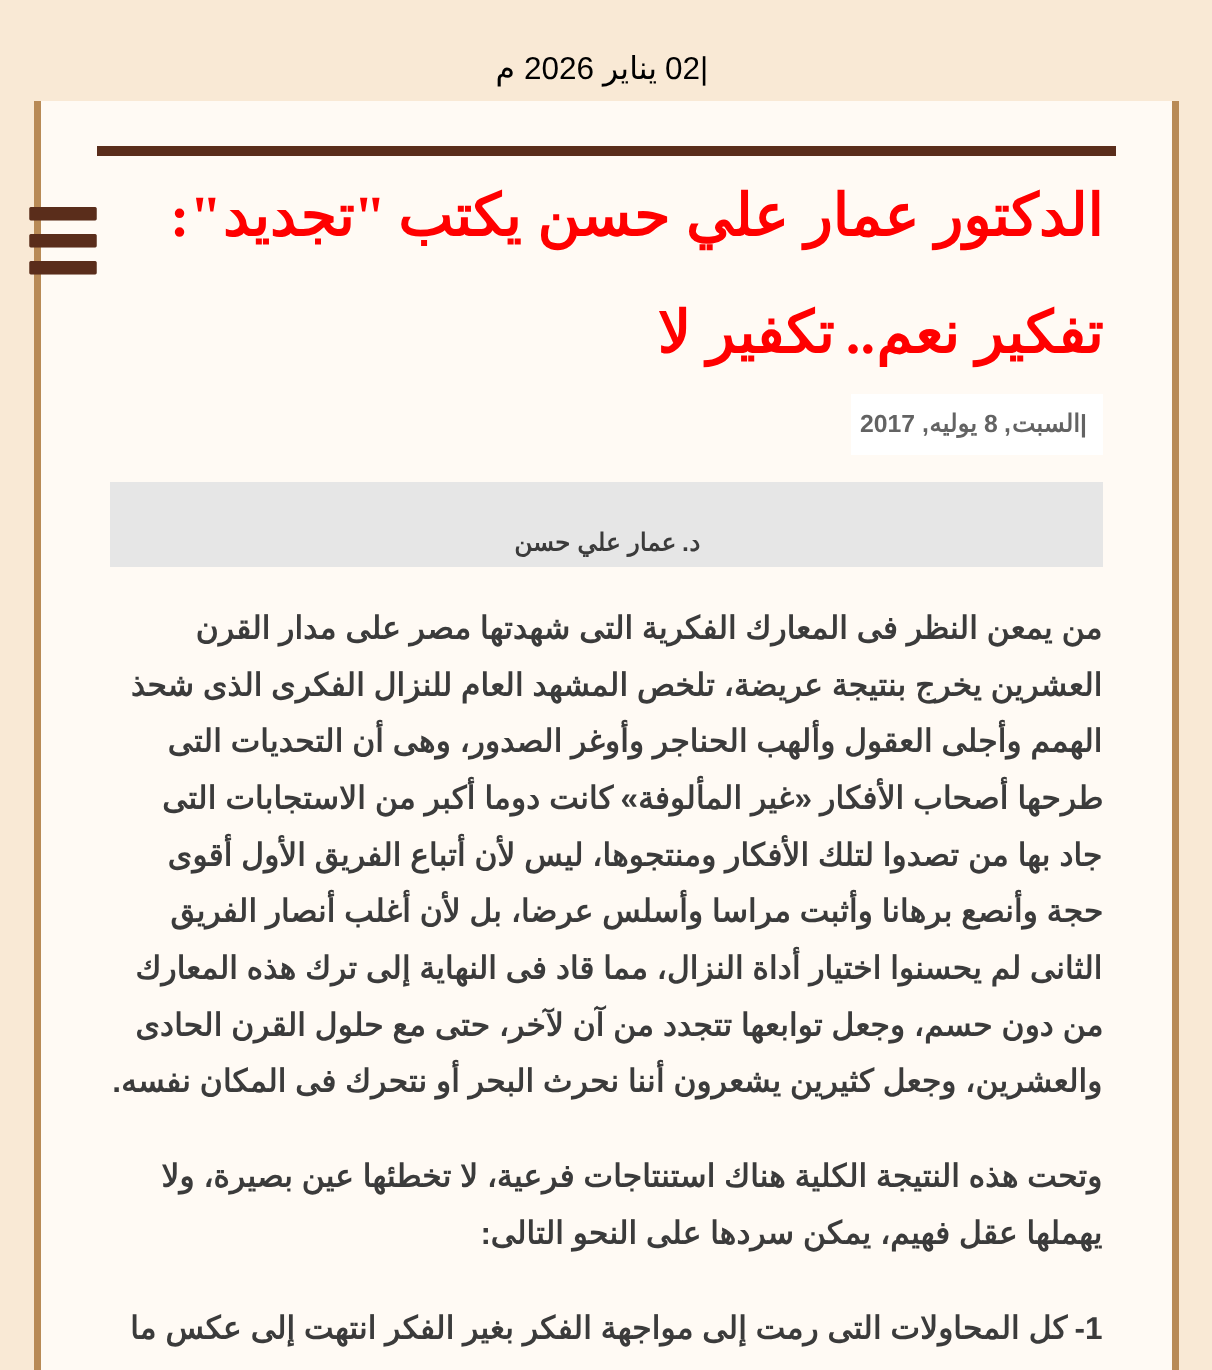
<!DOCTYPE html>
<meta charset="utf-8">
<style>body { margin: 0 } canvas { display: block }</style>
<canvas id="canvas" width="1212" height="1370"></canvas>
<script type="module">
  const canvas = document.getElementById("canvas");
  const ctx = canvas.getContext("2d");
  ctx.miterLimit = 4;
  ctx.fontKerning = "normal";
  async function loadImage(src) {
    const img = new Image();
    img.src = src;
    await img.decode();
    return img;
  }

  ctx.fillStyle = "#f9e9d5";
  ctx.fillRect(0, 0, 1212, 1370);
  ctx.font = "31.5px Liberation Sans";
  ctx.fillStyle = "#000000";
  ctx.fillText("|", 700, 79);
  ctx.fillText("02", 665, 79);
  ctx.direction = "rtl";
  ctx.font = "31.5px DejaVu Sans";
  ctx.fillText("يناير", 657, 79);
  ctx.direction = "ltr";
  ctx.font = "31.5px Liberation Sans";
  ctx.fillText("2026", 524, 79);
  ctx.direction = "rtl";
  ctx.font = "31.5px DejaVu Sans";
  ctx.fillText("م", 515, 79);
  ctx.fillStyle = "#fffaf4";
  ctx.fillRect(41, 101, 1131, 1269);
  ctx.fillStyle = "#b88a56";
  ctx.fillRect(1172, 101, 7, 1269);
  ctx.fillRect(34, 101, 7, 1269);
  ctx.fillStyle = "#5a2d1b";
  ctx.fillRect(97, 146, 1019, 10);
  ctx.wordSpacing = "-3px";
  ctx.font = "bold 58.5px DejaVu Sans";
  ctx.fillStyle = "#ff0000";
  ctx.fillText("الدكتور عمار علي حسن يكتب", 1103, 236);
  ctx.wordSpacing = "0px";
  ctx.font = "bold 58.5px Liberation Serif";
  ctx.fillText("\"", 386, 236);
  ctx.fillText("\":", 222, 236);
  ctx.font = "bold 58.5px DejaVu Sans";
  ctx.fillText("تجديد", 354, 236);
  ctx.wordSpacing = "-3px";
  ctx.fillText("تفكير نعم", 1103, 353);
  ctx.wordSpacing = "0px";
  ctx.font = "bold 58.5px Liberation Serif";
  ctx.fillText("..", 875, 353);
  ctx.wordSpacing = "-3px";
  ctx.font = "bold 58.5px DejaVu Sans";
  ctx.fillText("تكفير لا", 834, 353);
  ctx.fillStyle = "#ffffff";
  ctx.fillRect(851, 394, 252, 61);
  ctx.wordSpacing = "0px";
  ctx.direction = "ltr";
  ctx.font = "bold 24.75px Liberation Sans";
  ctx.fillStyle = "#636363";
  ctx.fillText("|", 1080, 432);
  ctx.direction = "rtl";
  ctx.font = "bold 24.75px DejaVu Sans";
  ctx.fillText("السبت", 1080, 432);
  ctx.font = "bold 24.75px Liberation Sans";
  ctx.fillText(",", 1011, 432);
  ctx.direction = "ltr";
  ctx.fillText("8", 984, 432);
  ctx.direction = "rtl";
  ctx.font = "bold 24.75px DejaVu Sans";
  ctx.fillText("يوليه", 977, 432);
  ctx.font = "bold 24.75px Liberation Sans";
  ctx.fillText(",", 929, 432);
  ctx.direction = "ltr";
  ctx.fillText("2017", 860, 432);
  ctx.fillStyle = "#e6e6e6";
  ctx.fillRect(110, 482, 993, 85);
  ctx.direction = "rtl";
  ctx.font = "bold 24.75px DejaVu Sans";
  ctx.fillStyle = "#3b3b3b";
  ctx.fillText("د", 700, 551);
  ctx.font = "bold 24.75px Liberation Sans";
  ctx.fillText(".", 689, 551);
  ctx.wordSpacing = "-1px";
  ctx.font = "bold 24.75px DejaVu Sans";
  ctx.fillText("عمار علي حسن", 676, 551);
  ctx.wordSpacing = "-1.25px";
  ctx.font = "bold 31.5px DejaVu Sans";
  ctx.fillText("من يمعن النظر فى المعارك الفكرية التى شهدتها مصر على مدار القرن", 1102, 639);
  ctx.fillText("العشرين يخرج بنتيجة عريضة، تلخص المشهد العام للنزال الفكرى الذى شحذ", 1102, 696);
  ctx.fillText("الهمم وأجلى العقول وألهب الحناجر وأوغر الصدور، وهى أن التحديات التى", 1102, 752);
  ctx.wordSpacing = "-1px";
  ctx.fillText("طرحها أصحاب الأفكار", 1103, 809);
  ctx.wordSpacing = "0px";
  ctx.font = "bold 31.5px Liberation Sans";
  ctx.fillText("«", 812, 809);
  ctx.wordSpacing = "-1px";
  ctx.font = "bold 31.5px DejaVu Sans";
  ctx.fillText("غير المألوفة", 794, 809);
  ctx.wordSpacing = "0px";
  ctx.font = "bold 31.5px Liberation Sans";
  ctx.fillText("»", 638, 809);
  ctx.wordSpacing = "-1px";
  ctx.font = "bold 31.5px DejaVu Sans";
  ctx.fillText("كانت دوما أكبر من الاستجابات التى", 613, 809);
  ctx.wordSpacing = "-1.25px";
  ctx.fillText("جاد بها من تصدوا لتلك الأفكار ومنتجوها، ليس لأن أتباع الفريق الأول أقوى", 1102, 866);
  ctx.fillText("حجة وأنصع برهانا وأثبت مراسا وأسلس عرضا، بل لأن أغلب أنصار الفريق", 1103, 922);
  ctx.fillText("الثانى لم يحسنوا اختيار أداة النزال، مما قاد فى النهاية إلى ترك هذه المعارك", 1102, 979);
  ctx.save();
  ctx.beginPath();
  ctx.rect(97, 155, 1019, 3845);
  ctx.clip();
  ctx.fillText("من دون حسم، وجعل توابعها تتجدد من آن لآخر، حتى مع حلول القرن الحادى", 1103, 1036);
  ctx.restore();
  ctx.fillText("والعشرين، وجعل كثيرين يشعرون أننا نحرث البحر أو نتحرك فى المكان نفسه", 1102, 1092);
  ctx.wordSpacing = "0px";
  ctx.font = "bold 31.5px Liberation Sans";
  ctx.fillText(".", 121, 1092);
  ctx.wordSpacing = "-1.25px";
  ctx.font = "bold 31.5px DejaVu Sans";
  ctx.fillText("وتحت هذه النتيجة الكلية هناك استنتاجات فرعية، لا تخطئها عين بصيرة، ولا", 1102, 1187);
  ctx.fillText("يهملها عقل فهيم، يمكن سردها على النحو التالى", 1102, 1244);
  ctx.wordSpacing = "0px";
  ctx.font = "bold 31.5px Liberation Sans";
  ctx.fillText(":", 491, 1244);
  ctx.direction = "ltr";
  ctx.fillText("1", 1085, 1339);
  ctx.wordSpacing = "-1.2px";
  ctx.direction = "rtl";
  ctx.font = "bold 31.5px DejaVu Sans";
  ctx.fillText("كل المحاولات التى رمت إلى مواجهة الفكر بغير الفكر انتهت إلى عكس ما", 1067, 1339);
  ctx.wordSpacing = "0px";
  ctx.font = "bold 31.5px Liberation Sans";
  ctx.fillText("-", 1085, 1339);
  ctx.drawImage(await loadImage("img1.png"), 29, 207, 68, 68);
</script>
